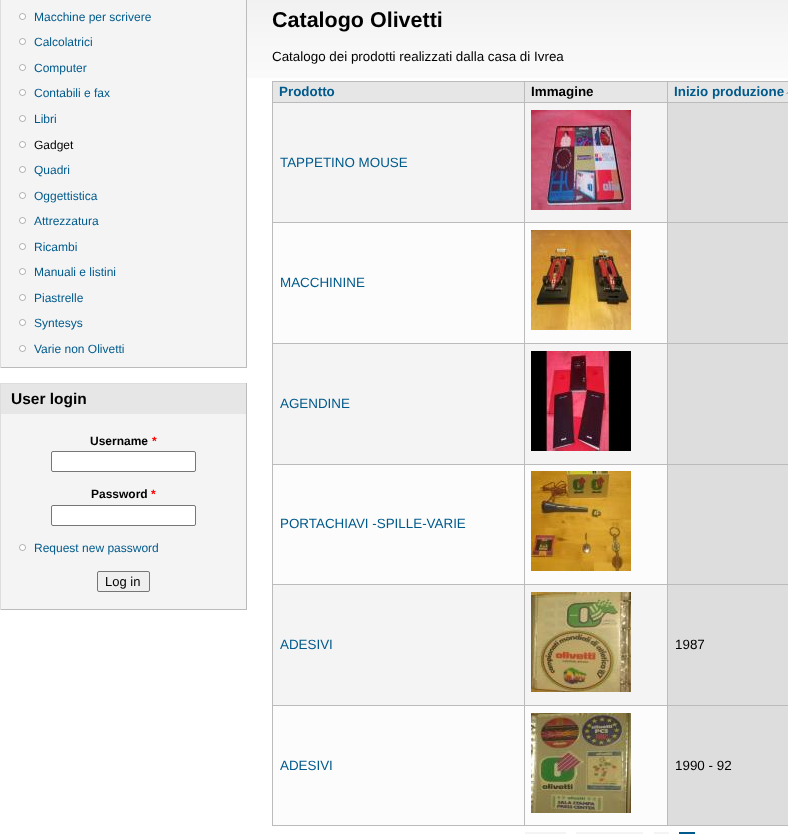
<!DOCTYPE html>
<meta charset="utf-8">
<style>body { margin: 0 } canvas { display: block }</style>
<canvas id="canvas" width="788" height="834"></canvas>
<script type="module">
  const canvas = document.getElementById("canvas");
  const ctx = canvas.getContext("2d");
  ctx.miterLimit = 4;
  ctx.fontKerning = "normal";
  async function loadImage(src) {
    const img = new Image();
    img.src = src;
    await img.decode();
    return img;
  }

  ctx.fillStyle = "#ffffff";
  ctx.fillRect(0, 0, 788, 834);
  ctx.drawImage(await loadImage("img1.png"), 247, 0, 541, 78);
  ctx.fillStyle = "#f4f4f4";
  ctx.fillRect(1, 0, 245, 367);
  ctx.fillStyle = "#bbbbbb";
  ctx.fillRect(246, 0, 1, 368);
  ctx.fillRect(0, 367, 247, 1);
  ctx.fillStyle = "#dddddd";
  ctx.fillRect(0, 0, 1, 368);
  ctx.drawImage(await loadImage("img2.png"), 19, 13, 7, 7);
  ctx.font = "12px Liberation Sans";
  ctx.fillStyle = "#005a8c";
  ctx.fillText("Macchine per scrivere", 34, 21);
  ctx.drawImage(await loadImage("img2.png"), 19, 38, 7, 7);
  ctx.fillText("Calcolatrici", 34, 46);
  ctx.drawImage(await loadImage("img2.png"), 19, 64, 7, 7);
  ctx.fillText("Computer", 34, 72);
  ctx.drawImage(await loadImage("img2.png"), 19, 89, 7, 7);
  ctx.fillText("Contabili e fax", 34, 97);
  ctx.drawImage(await loadImage("img2.png"), 19, 115, 7, 7);
  ctx.fillText("Libri", 34, 123);
  ctx.drawImage(await loadImage("img2.png"), 19, 141, 7, 7);
  ctx.fillStyle = "#000000";
  ctx.fillText("Gadget", 34, 149);
  ctx.drawImage(await loadImage("img2.png"), 19, 166, 7, 7);
  ctx.fillStyle = "#005a8c";
  ctx.fillText("Quadri", 34, 174);
  ctx.drawImage(await loadImage("img2.png"), 19, 192, 7, 7);
  ctx.fillText("Oggettistica", 34, 200);
  ctx.drawImage(await loadImage("img2.png"), 19, 217, 7, 7);
  ctx.fillText("Attrezzatura", 34, 225);
  ctx.drawImage(await loadImage("img2.png"), 19, 243, 7, 7);
  ctx.fillText("Ricambi", 34, 251);
  ctx.drawImage(await loadImage("img2.png"), 19, 268, 7, 7);
  ctx.fillText("Manuali e listini", 34, 276);
  ctx.drawImage(await loadImage("img2.png"), 19, 294, 7, 7);
  ctx.fillText("Piastrelle", 34, 302);
  ctx.drawImage(await loadImage("img2.png"), 19, 319, 7, 7);
  ctx.fillText("Syntesys", 34, 327);
  ctx.drawImage(await loadImage("img2.png"), 19, 345, 7, 7);
  ctx.fillText("Varie non Olivetti", 34, 353);
  ctx.fillStyle = "#f4f4f4";
  ctx.fillRect(1, 414, 245, 195);
  ctx.fillStyle = "#dddddd";
  ctx.fillRect(0, 383, 247, 1);
  ctx.fillStyle = "#bbbbbb";
  ctx.fillRect(246, 383, 1, 227);
  ctx.fillRect(0, 609, 247, 1);
  ctx.fillStyle = "#dddddd";
  ctx.fillRect(0, 383, 1, 227);
  ctx.fillStyle = "#e6e6e6";
  ctx.fillRect(1, 384, 245, 30);
  ctx.font = "bold 15.5px Liberation Sans";
  ctx.fillStyle = "#000000";
  ctx.fillText("User login", 11, 404);
  ctx.font = "bold 12px Liberation Sans";
  ctx.fillText("Username", 90, 445);
  ctx.fillStyle = "#ff0000";
  ctx.fillText("*", 152, 445);
  ctx.fillStyle = "#ffffff";
  ctx.beginPath();
  ctx.roundRect(51.5, 451.5, 144, 20, 1.5);
  ctx.fill();
  ctx.strokeStyle = "#767676";
  ctx.stroke();
  ctx.fillStyle = "#000000";
  ctx.fillText("Password", 91, 498);
  ctx.fillStyle = "#ff0000";
  ctx.fillText("*", 151, 498);
  ctx.fillStyle = "#ffffff";
  ctx.beginPath();
  ctx.roundRect(51.5, 505.5, 144, 20, 1.5);
  ctx.fill();
  ctx.stroke();
  ctx.drawImage(await loadImage("img2.png"), 19, 544, 7, 7);
  ctx.font = "12px Liberation Sans";
  ctx.fillStyle = "#005a8c";
  ctx.fillText("Request new password", 34, 552);
  ctx.fillStyle = "#efefef";
  ctx.beginPath();
  ctx.roundRect(97.5, 571.5, 52, 20, 1.5);
  ctx.fill();
  ctx.stroke();
  ctx.font = "13px Liberation Sans";
  ctx.fillStyle = "#000000";
  ctx.fillText("Log in", 105, 586);
  ctx.font = "bold 21.5px Liberation Sans";
  ctx.fillText("Catalogo Olivetti", 272, 27);
  ctx.font = "13.4px Liberation Sans";
  ctx.fillText("Catalogo dei prodotti realizzati dalla casa di Ivrea", 272, 61);
  ctx.fillStyle = "#e6e6e6";
  ctx.fillRect(273, 82, 251, 20);
  ctx.fillStyle = "#bbbbbb";
  ctx.fillRect(667, 81, 121, 1);
  ctx.fillRect(667, 102, 121, 1);
  ctx.fillRect(667, 222, 121, 1);
  ctx.fillRect(667, 343, 121, 1);
  ctx.fillRect(667, 464, 121, 1);
  ctx.fillRect(667, 584, 121, 1);
  ctx.fillRect(667, 705, 121, 1);
  ctx.fillRect(667, 825, 121, 1);
  ctx.fillRect(667, 705, 1, 121);
  ctx.fillRect(524, 705, 144, 1);
  ctx.fillRect(667, 584, 1, 122);
  ctx.fillRect(524, 584, 144, 1);
  ctx.fillRect(667, 464, 1, 121);
  ctx.fillRect(524, 464, 144, 1);
  ctx.fillRect(667, 343, 1, 122);
  ctx.fillRect(524, 343, 144, 1);
  ctx.fillRect(667, 222, 1, 122);
  ctx.fillRect(524, 222, 144, 1);
  ctx.fillRect(667, 102, 1, 121);
  ctx.fillRect(524, 102, 144, 1);
  ctx.fillRect(667, 81, 1, 22);
  ctx.fillRect(524, 81, 144, 1);
  ctx.fillStyle = "#f4f4f4";
  ctx.fillRect(273, 103, 394, 119);
  ctx.fillStyle = "#fcfcfc";
  ctx.fillRect(273, 223, 394, 120);
  ctx.fillStyle = "#f4f4f4";
  ctx.fillRect(273, 344, 394, 120);
  ctx.fillStyle = "#fcfcfc";
  ctx.fillRect(273, 465, 394, 119);
  ctx.fillStyle = "#f4f4f4";
  ctx.fillRect(273, 585, 394, 120);
  ctx.fillStyle = "#fcfcfc";
  ctx.fillRect(273, 706, 394, 119);
  ctx.fillStyle = "#bbbbbb";
  ctx.fillRect(524, 825, 144, 1);
  ctx.fillRect(524, 705, 1, 121);
  ctx.fillRect(272, 705, 253, 1);
  ctx.fillRect(524, 584, 1, 122);
  ctx.fillRect(272, 584, 253, 1);
  ctx.fillRect(524, 464, 1, 121);
  ctx.fillRect(272, 464, 253, 1);
  ctx.fillRect(524, 343, 1, 122);
  ctx.fillRect(272, 343, 253, 1);
  ctx.fillRect(524, 222, 1, 122);
  ctx.fillRect(272, 222, 253, 1);
  ctx.fillRect(524, 102, 1, 121);
  ctx.fillRect(272, 102, 253, 1);
  ctx.fillRect(524, 81, 1, 22);
  ctx.fillRect(272, 81, 253, 1);
  ctx.fillRect(272, 825, 253, 1);
  ctx.fillRect(272, 705, 1, 121);
  ctx.fillRect(272, 584, 1, 122);
  ctx.fillRect(272, 464, 1, 121);
  ctx.fillRect(272, 343, 1, 122);
  ctx.fillRect(272, 222, 1, 122);
  ctx.fillRect(272, 102, 1, 121);
  ctx.fillRect(272, 81, 1, 22);
  ctx.font = "bold 13.4px Liberation Sans";
  ctx.fillStyle = "#005a8c";
  ctx.fillText("Prodotto", 279, 96);
  ctx.fillStyle = "#e6e6e6";
  ctx.fillRect(525, 82, 142, 20);
  ctx.fillStyle = "#000000";
  ctx.fillText("Immagine", 531, 96);
  ctx.fillStyle = "#e6e6e6";
  ctx.fillRect(668, 82, 120, 20);
  ctx.fillStyle = "#005a8c";
  ctx.fillText("Inizio produzione", 674, 96);
  ctx.drawImage(await loadImage("img3.png"), 786, 92, 2, 2);
  ctx.font = "13.4px Liberation Sans";
  ctx.fillText("TAPPETINO MOUSE", 280, 167);
  ctx.drawImage(await loadImage("img4.png"), 531, 110, 100, 100);
  ctx.fillStyle = "#dddddd";
  ctx.fillRect(668, 103, 120, 119);
  ctx.fillStyle = "#005a8c";
  ctx.fillText("MACCHININE", 280, 287);
  ctx.drawImage(await loadImage("img5.png"), 531, 230, 100, 100);
  ctx.fillStyle = "#dddddd";
  ctx.fillRect(668, 223, 120, 120);
  ctx.fillStyle = "#005a8c";
  ctx.fillText("AGENDINE", 280, 408);
  ctx.drawImage(await loadImage("img6.png"), 531, 351, 100, 100);
  ctx.fillStyle = "#dddddd";
  ctx.fillRect(668, 344, 120, 120);
  ctx.fillStyle = "#005a8c";
  ctx.fillText("PORTACHIAVI -SPILLE-VARIE", 280, 528);
  ctx.drawImage(await loadImage("img7.png"), 531, 471, 100, 100);
  ctx.fillStyle = "#dddddd";
  ctx.fillRect(668, 465, 120, 119);
  ctx.fillStyle = "#005a8c";
  ctx.fillText("ADESIVI", 280, 649);
  ctx.drawImage(await loadImage("img8.png"), 531, 592, 100, 100);
  ctx.fillStyle = "#dddddd";
  ctx.fillRect(668, 585, 120, 120);
  ctx.fillStyle = "#000000";
  ctx.fillText("1987", 675, 649);
  ctx.fillStyle = "#005a8c";
  ctx.fillText("ADESIVI", 280, 770);
  ctx.drawImage(await loadImage("img9.png"), 531, 713, 100, 100);
  ctx.fillStyle = "#dddddd";
  ctx.fillRect(668, 706, 120, 119);
  ctx.fillStyle = "#000000";
  ctx.fillText("1990 - 92", 675, 770);
  ctx.fillStyle = "#f4f4f4";
  ctx.fillRect(525, 832, 41, 2);
  ctx.fillRect(576, 832, 67, 2);
  ctx.fillRect(654, 832, 15, 2);
  ctx.fillStyle = "#005a8c";
  ctx.fillRect(679, 832, 16, 2);
</script>
